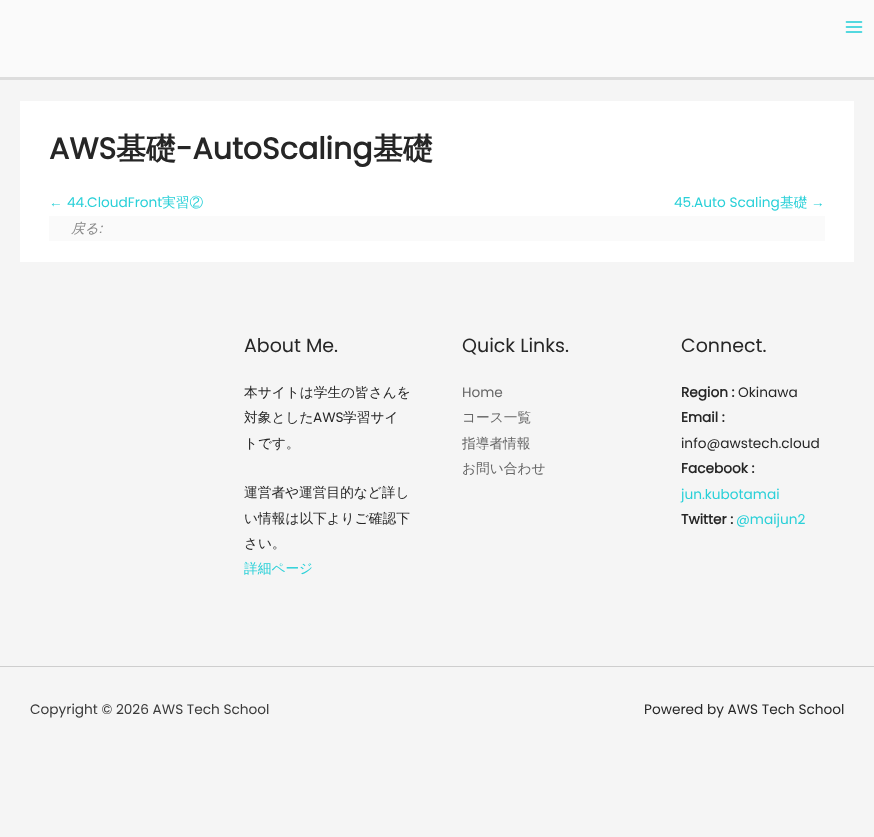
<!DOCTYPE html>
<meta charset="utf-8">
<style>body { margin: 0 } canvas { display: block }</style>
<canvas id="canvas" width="874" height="837"></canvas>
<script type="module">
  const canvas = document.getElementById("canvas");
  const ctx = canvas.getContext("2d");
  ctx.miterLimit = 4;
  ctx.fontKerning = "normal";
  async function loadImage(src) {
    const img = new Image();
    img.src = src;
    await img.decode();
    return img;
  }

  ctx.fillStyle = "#f5f5f5";
  ctx.fillRect(0, 0, 874, 837);
  ctx.fillStyle = "#fafafa";
  ctx.fillRect(0, 0, 874, 77);
  ctx.fillStyle = "#dddddd";
  ctx.fillRect(0, 77, 874, 3);
  ctx.drawImage(await loadImage("img1.png"), 845, 21, 18, 12);
  ctx.fillStyle = "#ffffff";
  ctx.fillRect(20, 101, 834, 161);
  ctx.font = "bold 30px Poppins";
  ctx.fillStyle = "#262626";
  ctx.fillText("AWS", 49, 159);
  ctx.font = "bold 30px WenQuanYi Zen Hei";
  ctx.fillText("基礎", 116, 159);
  ctx.font = "bold 30px Poppins";
  ctx.fillText("-AutoScaling", 176, 159);
  ctx.font = "bold 30px WenQuanYi Zen Hei";
  ctx.fillText("基礎", 373, 159);
  ctx.font = "13.7px Liberation Sans";
  ctx.fillStyle = "#29d0d8";
  ctx.fillText("←", 49, 207);
  ctx.font = "13.7px Poppins";
  ctx.fillText("44.CloudFront", 67, 207);
  ctx.font = "500 13.7px WenQuanYi Zen Hei";
  ctx.fillText("実習②", 162, 207);
  ctx.font = "13.7px Poppins";
  ctx.fillText("45.Auto Scaling", 674, 207);
  ctx.font = "500 13.7px WenQuanYi Zen Hei";
  ctx.fillText("基礎", 780, 207);
  ctx.font = "13.7px Liberation Sans";
  ctx.fillText("→", 811, 207);
  ctx.fillStyle = "#fafafa";
  ctx.fillRect(49, 216, 776, 25);
  ctx.font = "italic 500 13.7px WenQuanYi Zen Hei";
  ctx.fillStyle = "#888888";
  ctx.fillText("戻る", 71, 233);
  ctx.font = "italic 13.7px Poppins";
  ctx.fillText(":", 99, 233);
  ctx.font = "19px Poppins";
  ctx.fillStyle = "#262626";
  ctx.fillText("About Me.", 244, 352);
  ctx.font = "500 13.7px WenQuanYi Zen Hei";
  ctx.fillText("本サイトは学生の皆さんを", 244, 397);
  ctx.fillText("対象とした", 244, 422);
  ctx.font = "13.7px Poppins";
  ctx.fillText("AWS", 313, 422);
  ctx.font = "500 13.7px WenQuanYi Zen Hei";
  ctx.fillText("学習サイ", 343, 422);
  ctx.fillText("トです。", 244, 448);
  ctx.fillText("運営者や運営目的など詳し", 244, 497);
  ctx.fillText("い情報は以下よりご確認下", 244, 523);
  ctx.fillText("さい。", 244, 548);
  ctx.fillStyle = "#29d0d8";
  ctx.fillText("詳細ページ", 244, 573);
  ctx.font = "19px Poppins";
  ctx.fillStyle = "#262626";
  ctx.fillText("Quick Links.", 462, 352);
  ctx.font = "13.7px Poppins";
  ctx.fillStyle = "#666666";
  ctx.fillText("Home", 462, 397);
  ctx.font = "500 13.7px WenQuanYi Zen Hei";
  ctx.fillText("コース一覧", 462, 422);
  ctx.fillText("指導者情報", 462, 448);
  ctx.fillText("お問い合わせ", 462, 473);
  ctx.font = "19px Poppins";
  ctx.fillStyle = "#262626";
  ctx.fillText("Connect.", 681, 352);
  ctx.font = "bold 13.7px Poppins";
  ctx.fillText("Region :", 681, 397);
  ctx.font = "13.7px Poppins";
  ctx.fillText("Okinawa", 738, 397);
  ctx.font = "bold 13.7px Poppins";
  ctx.fillText("Email :", 681, 422);
  ctx.font = "13.7px Poppins";
  ctx.fillText("info@awstech.cloud", 681, 448);
  ctx.font = "bold 13.7px Poppins";
  ctx.fillText("Facebook :", 681, 473);
  ctx.font = "13.7px Poppins";
  ctx.fillStyle = "#29d0d8";
  ctx.fillText("jun.kubotamai", 681, 499);
  ctx.font = "bold 13.7px Poppins";
  ctx.fillStyle = "#262626";
  ctx.fillText("Twitter :", 681, 524);
  ctx.font = "13.7px Poppins";
  ctx.fillStyle = "#29d0d8";
  ctx.fillText("@maijun2", 736, 524);
  ctx.fillStyle = "#cecece";
  ctx.fillRect(0, 666, 874, 1);
  ctx.fillStyle = "#3a3a3a";
  ctx.fillText("Copyright © 2026 AWS Tech School", 30, 714);
  ctx.fillStyle = "#262626";
  ctx.fillText("Powered by AWS Tech School", 644, 714);
</script>
